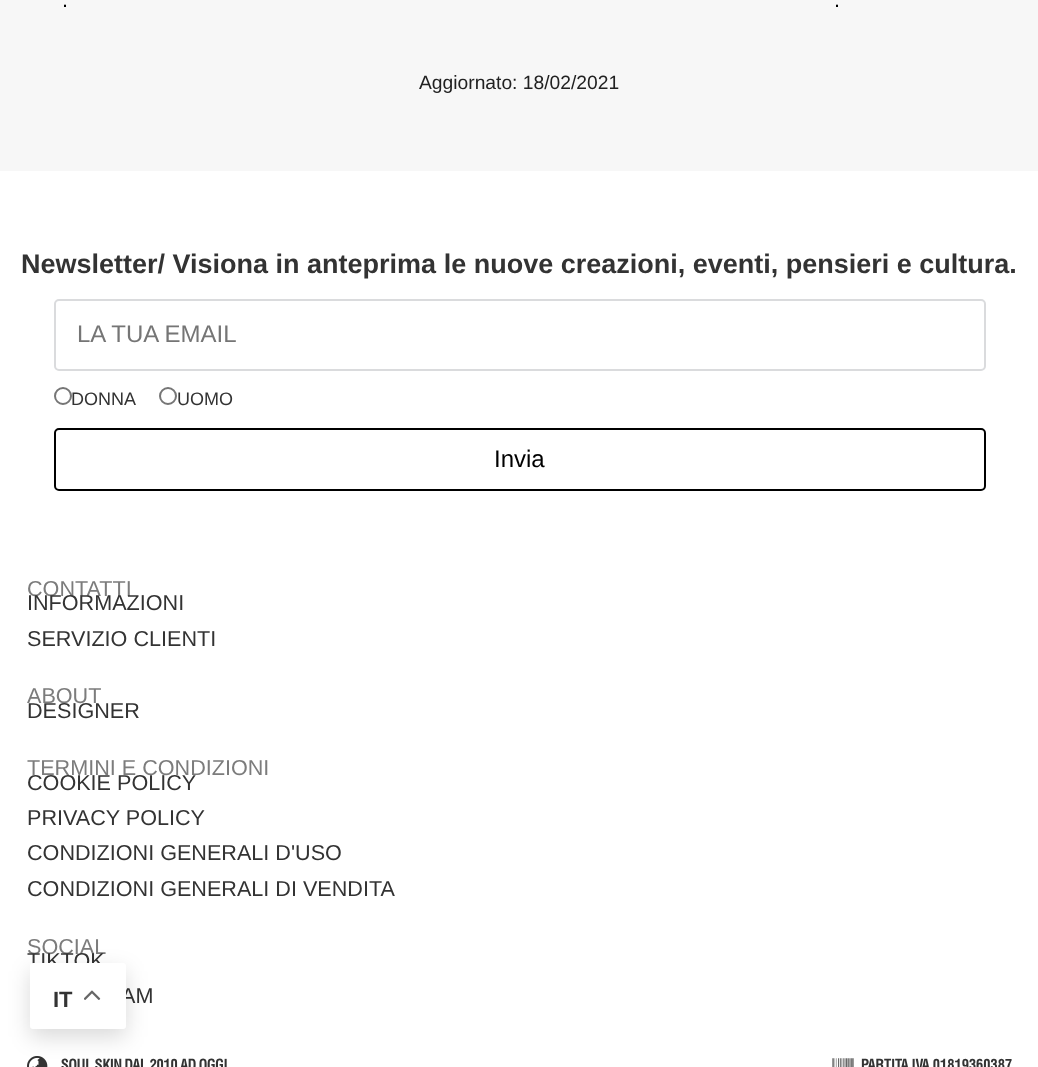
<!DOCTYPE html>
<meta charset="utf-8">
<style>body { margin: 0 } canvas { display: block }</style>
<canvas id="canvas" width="1038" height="1067"></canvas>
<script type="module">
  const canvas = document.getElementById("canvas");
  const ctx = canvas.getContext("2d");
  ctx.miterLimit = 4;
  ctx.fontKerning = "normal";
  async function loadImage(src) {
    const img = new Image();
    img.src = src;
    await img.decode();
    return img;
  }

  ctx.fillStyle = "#ffffff";
  ctx.fillRect(0, 0, 1038, 1067);
  ctx.fillStyle = "#f7f7f7";
  ctx.fillRect(0, 0, 1038, 171);
  ctx.font = "21.6px Liberation Sans";
  ctx.fillStyle = "#000000";
  ctx.fillText(".", 62, 7);
  ctx.fillText(".", 834, 7);
  ctx.font = "19.25px Liberation Sans";
  ctx.fillStyle = "#212121";
  ctx.fillText("Aggiornato: 18/02/2021", 419, 89);
  ctx.font = "bold 27px Liberation Sans";
  ctx.fillStyle = "#333333";
  ctx.fillText("Newsletter/ Visiona in anteprima le nuove creazioni, eventi, pensieri e cultura.", 21, 273);
  ctx.beginPath();
  ctx.roundRect(55, 300, 930, 70, 4);
  ctx.strokeStyle = "#dadbdd";
  ctx.lineWidth = 2;
  ctx.stroke();
  ctx.font = "24px Liberation Sans";
  ctx.fillStyle = "#757575";
  ctx.fillText("LA TUA EMAIL", 77, 342);
  ctx.beginPath();
  ctx.arc(63, 396, 8, 0, Math.PI * 2);
  ctx.strokeStyle = "#767676";
  ctx.stroke();
  ctx.font = "18px Liberation Sans";
  ctx.fillStyle = "#333333";
  ctx.fillText("DONNA", 71, 405);
  ctx.beginPath();
  ctx.arc(168, 396, 8, 0, Math.PI * 2);
  ctx.stroke();
  ctx.fillText("UOMO", 177, 405);
  ctx.beginPath();
  ctx.roundRect(55, 429, 930, 61, 4);
  ctx.strokeStyle = "#000000";
  ctx.stroke();
  ctx.font = "24px Liberation Sans";
  ctx.fillStyle = "#000000";
  ctx.fillText("Invia", 494, 467);
  ctx.font = "21.6px Liberation Sans";
  ctx.fillStyle = "#7c7c7c";
  ctx.fillText("CONTATTI", 27, 596);
  ctx.fillStyle = "#333333";
  ctx.fillText("INFORMAZIONI", 27, 610);
  ctx.fillText("SERVIZIO CLIENTI", 27, 646);
  ctx.fillStyle = "#7c7c7c";
  ctx.fillText("ABOUT", 27, 703);
  ctx.fillStyle = "#333333";
  ctx.fillText("DESIGNER", 27, 718);
  ctx.fillStyle = "#7c7c7c";
  ctx.fillText("TERMINI E CONDIZIONI", 27, 775);
  ctx.fillStyle = "#333333";
  ctx.fillText("COOKIE POLICY", 27, 790);
  ctx.fillText("PRIVACY POLICY", 27, 825);
  ctx.fillText("CONDIZIONI GENERALI D'USO", 27, 860);
  ctx.fillText("CONDIZIONI GENERALI DI VENDITA", 27, 896);
  ctx.fillStyle = "#7c7c7c";
  ctx.fillText("SOCIAL", 27, 954);
  ctx.fillStyle = "#333333";
  ctx.fillText("TIKTOK", 27, 968);
  ctx.fillText("AM", 121, 1003);
  ctx.drawImage(await loadImage("img1.png"), 27, 1056, 21, 11);
  ctx.letterSpacing = "-0.3px";
  ctx.font = "bold 15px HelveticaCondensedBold";
  ctx.fillText("SOUL SKIN DAL 2010 AD OGGI", 61, 1070);
  ctx.drawImage(await loadImage("img2.png"), 832, 1058, 22, 9);
  ctx.letterSpacing = "0px";
  ctx.fillText("PARTITA IVA 01819360387", 861, 1070);
  ctx.fillStyle = "rgba(0, 0, 0, 0.15)";
  ctx.filter = "blur(11px)";
  ctx.beginPath();
  ctx.roundRect(30, 971, 96, 66, 3);
  ctx.fill();
  ctx.filter = "none";
  ctx.fillStyle = "#ffffff";
  ctx.beginPath();
  ctx.roundRect(30, 963, 96, 66, 3);
  ctx.fill();
  ctx.font = "bold 22px Liberation Sans";
  ctx.fillStyle = "#333333";
  ctx.fillText("IT", 53, 1007);
  ctx.drawImage(await loadImage("img3.png"), 84, 990, 17, 10);
</script>
